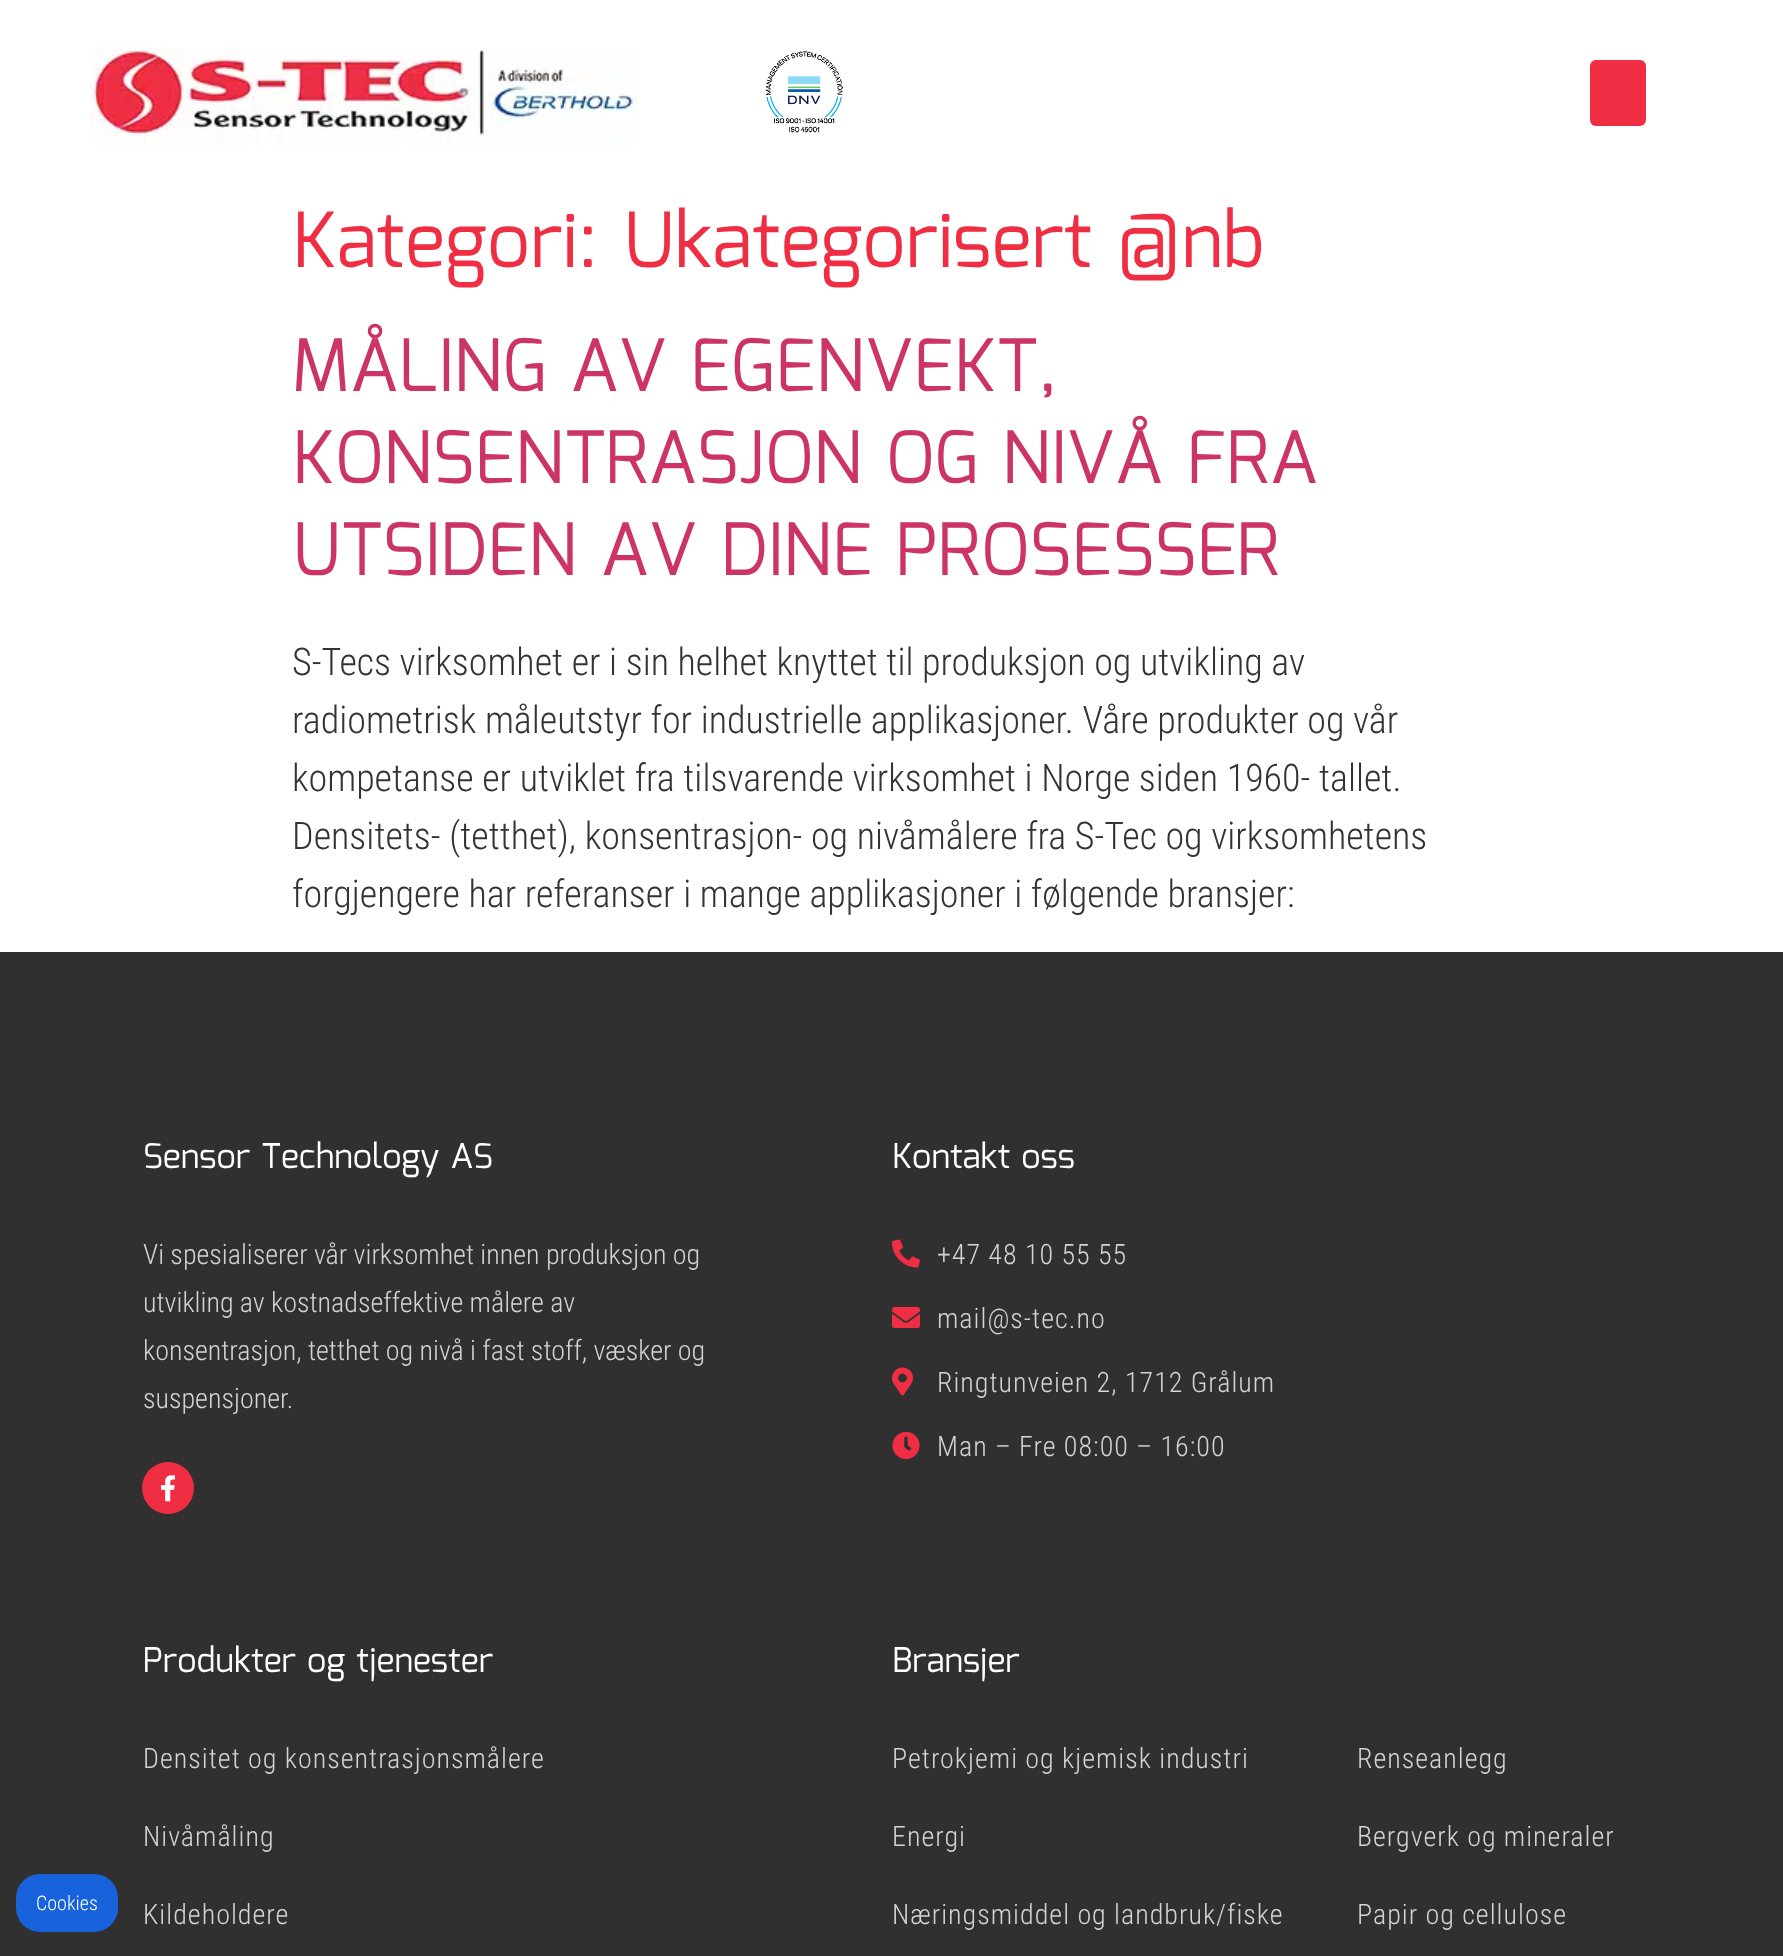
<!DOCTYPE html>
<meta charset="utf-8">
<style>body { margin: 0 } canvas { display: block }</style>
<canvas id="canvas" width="1783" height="1956"></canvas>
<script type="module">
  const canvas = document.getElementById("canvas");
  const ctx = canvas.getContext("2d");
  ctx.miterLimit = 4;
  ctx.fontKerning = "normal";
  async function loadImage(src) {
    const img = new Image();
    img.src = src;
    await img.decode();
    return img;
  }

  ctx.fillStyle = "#ffffff";
  ctx.fillRect(0, 0, 1783, 1956);
  ctx.drawImage(await loadImage("img1.png"), 90, 47, 547, 99);
  ctx.drawImage(await loadImage("img2.png"), 765, 51, 78, 82);
  ctx.fillStyle = "#ef2e43";
  ctx.beginPath();
  ctx.roundRect(1590, 60, 56, 66, 6);
  ctx.fill();
  ctx.font = "76px Mina";
  ctx.fillText("Kategori: Ukategorisert @nb", 292, 267);
  ctx.font = "72px Mina";
  ctx.fillStyle = "#cc3366";
  ctx.fillText("MÅLING AV EGENVEKT,", 292, 391);
  ctx.fillText("KONSENTRASJON OG NIVÅ FRA", 292, 483);
  ctx.fillText("UTSIDEN AV DINE PROSESSER", 292, 575);
  ctx.font = "300 38px Roboto Condensed";
  ctx.fillStyle = "#333333";
  ctx.fillText("S-Tecs virksomhet er i sin helhet knyttet til produksjon og utvikling av", 292, 675);
  ctx.fillText("radiometrisk måleutstyr for industrielle applikasjoner. Våre produkter og vår", 292, 733);
  ctx.fillText("kompetanse er utviklet fra tilsvarende virksomhet i Norge siden 1960- tallet.", 292, 791);
  ctx.fillText("Densitets- (tetthet), konsentrasjon- og nivåmålere fra S-Tec og virksomhetens", 292, 849);
  ctx.fillText("forgjengere har referanser i mange applikasjoner i følgende bransjer:", 292, 907);
  ctx.fillStyle = "#303030";
  ctx.fillRect(0, 952, 1783, 1004);
  ctx.fillStyle = "#1863dc";
  ctx.beginPath();
  ctx.roundRect(16, 1874, 102, 58, 24);
  ctx.fill();
  ctx.font = "300 20px Roboto Condensed";
  ctx.fillStyle = "#ffffff";
  ctx.fillText("Cookies", 36, 1910);
  ctx.font = "34px Mina";
  ctx.fillText("Sensor Technology AS", 143, 1168);
  ctx.font = "300 28px Roboto Condensed";
  ctx.fillStyle = "#d4d4d4";
  ctx.fillText("Vi spesialiserer vår virksomhet innen produksjon og", 143, 1264);
  ctx.fillText("utvikling av kostnadseffektive målere av", 143, 1312);
  ctx.fillText("konsentrasjon, tetthet og nivå i fast stoff, væsker og", 143, 1360);
  ctx.fillText("suspensjoner.", 143, 1408);
  ctx.fillStyle = "#ef2e43";
  ctx.beginPath();
  ctx.arc(168, 1488, 26, 0, Math.PI * 2);
  ctx.fill();
  ctx.drawImage(await loadImage("img3.png"), 161, 1475, 14, 27);
  ctx.font = "34px Mina";
  ctx.fillStyle = "#ffffff";
  ctx.fillText("Kontakt oss", 892, 1168);
  ctx.drawImage(await loadImage("img4.png"), 892, 1239, 28, 29);
  ctx.letterSpacing = "1px";
  ctx.font = "300 28px Roboto Condensed";
  ctx.fillStyle = "#d4d4d4";
  ctx.fillText("+47 48 10 55 55", 937, 1264);
  ctx.drawImage(await loadImage("img5.png"), 892, 1307, 28, 21);
  ctx.fillText("mail@s-tec.no", 937, 1328);
  ctx.drawImage(await loadImage("img6.png"), 892, 1367, 21, 29);
  ctx.fillText("Ringtunveien 2, 1712 Grålum", 937, 1392);
  ctx.drawImage(await loadImage("img7.png"), 892, 1432, 28, 27);
  ctx.fillText("Man – Fre 08:00 – 16:00", 937, 1456);
  ctx.letterSpacing = "0px";
  ctx.font = "34px Mina";
  ctx.fillStyle = "#ffffff";
  ctx.fillText("Produkter og tjenester", 143, 1672);
  ctx.letterSpacing = "1px";
  ctx.font = "300 28px Roboto Condensed";
  ctx.fillStyle = "#d4d4d4";
  ctx.fillText("Densitet og konsentrasjonsmålere", 143, 1768);
  ctx.fillText("Nivåmåling", 143, 1846);
  ctx.fillText("Kildeholdere", 143, 1924);
  ctx.letterSpacing = "0px";
  ctx.font = "34px Mina";
  ctx.fillStyle = "#ffffff";
  ctx.fillText("Bransjer", 892, 1672);
  ctx.letterSpacing = "1px";
  ctx.font = "300 28px Roboto Condensed";
  ctx.fillStyle = "#d4d4d4";
  ctx.fillText("Petrokjemi og kjemisk industri", 892, 1768);
  ctx.fillText("Energi", 892, 1846);
  ctx.fillText("Næringsmiddel og landbruk/fiske", 892, 1924);
  ctx.fillText("Renseanlegg", 1357, 1768);
  ctx.fillText("Bergverk og mineraler", 1357, 1846);
  ctx.fillText("Papir og cellulose", 1357, 1924);
</script>
